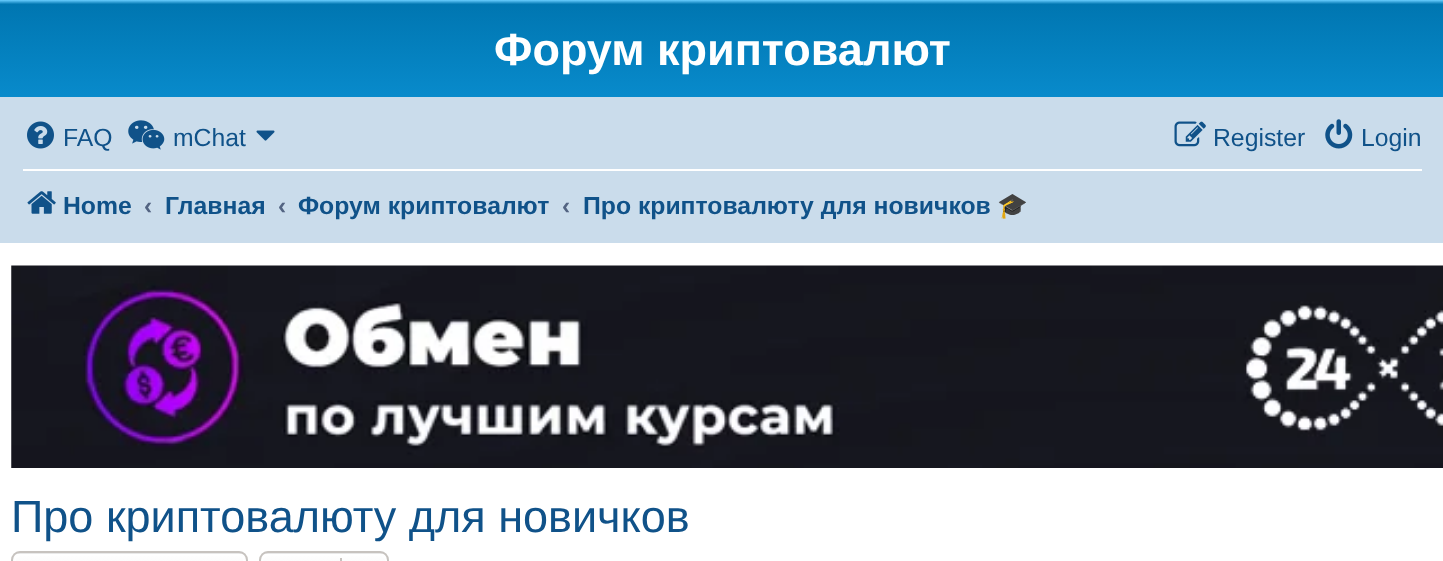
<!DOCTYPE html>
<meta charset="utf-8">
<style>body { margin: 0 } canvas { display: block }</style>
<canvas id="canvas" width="1443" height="561"></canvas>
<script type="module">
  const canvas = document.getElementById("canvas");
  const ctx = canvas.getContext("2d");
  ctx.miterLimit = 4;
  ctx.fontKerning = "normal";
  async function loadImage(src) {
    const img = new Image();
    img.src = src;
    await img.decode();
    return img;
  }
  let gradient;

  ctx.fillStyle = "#ffffff";
  ctx.fillRect(0, 0, 1443, 561);
  gradient = ctx.createLinearGradient(722, 0, 722, 207);
  gradient.addColorStop(0, "#6aceff");
  gradient.addColorStop(0.02, "#0076b1");
  gradient.addColorStop(1, "#12a3eb");
  ctx.fillStyle = gradient;
  ctx.fillRect(0, 0, 1443, 97);
  ctx.font = "bold 45px Liberation Sans";
  ctx.fillStyle = "#ffffff";
  ctx.fillText("Форум криптовалют", 494, 65);
  ctx.fillStyle = "#cadceb";
  ctx.fillRect(0, 97, 1443, 146);
  ctx.drawImage(await loadImage("img1.png"), 27, 121, 27, 28);
  ctx.font = "24.75px Liberation Sans";
  ctx.fillStyle = "#105289";
  ctx.fillText("FAQ", 63, 146);
  ctx.drawImage(await loadImage("img2.png"), 128, 120, 37, 30);
  ctx.fillText("mChat", 173, 146);
  ctx.drawImage(await loadImage("img3.png"), 256, 130, 19, 11);
  ctx.drawImage(await loadImage("img4.png"), 1174, 121, 32, 26);
  ctx.fillText("Register", 1213, 146);
  ctx.drawImage(await loadImage("img5.png"), 1325, 119, 28, 30);
  ctx.fillText("Login", 1361, 146);
  ctx.fillStyle = "#ffffff";
  ctx.fillRect(23, 169, 1399, 2);
  ctx.drawImage(await loadImage("img6.png"), 27, 191, 29, 23);
  ctx.font = "bold 24.75px Liberation Sans";
  ctx.fillStyle = "#105289";
  ctx.fillText("Home", 63, 214);
  ctx.fillStyle = "#536482";
  ctx.fillText("‹", 144, 214);
  ctx.fillStyle = "#105289";
  ctx.fillText("Главная", 165, 214);
  ctx.fillStyle = "#536482";
  ctx.fillText("‹", 278, 214);
  ctx.fillStyle = "#105289";
  ctx.fillText("Форум криптовалют", 298, 214);
  ctx.fillStyle = "#536482";
  ctx.fillText("‹", 562, 214);
  ctx.fillStyle = "#105289";
  ctx.fillText("Про криптовалюту для новичков", 583, 214);
  ctx.font = "bold 24.75px Noto Color Emoji";
  ctx.fillText("🎓", 997, 214);
  ctx.drawImage(await loadImage("img7.png"), 11, 265, 1432, 203);
  ctx.font = "45px Liberation Sans";
  ctx.fillText("Про криптовалюту для новичков", 11, 532);
  ctx.save();
  ctx.beginPath();
  ctx.roundRect(11, 551, 237, 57, 9);
  ctx.clip();
  gradient = ctx.createLinearGradient(129, 502, 129, 554);
  gradient.addColorStop(0, "#ffffff");
  gradient.addColorStop(1, "#e9e9e9");
  ctx.fillStyle = gradient;
  ctx.fillRect(11, 551, 237, 3);
  gradient = ctx.createLinearGradient(129, 554, 129, 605);
  gradient.addColorStop(0, "#ffffff");
  gradient.addColorStop(1, "#e9e9e9");
  ctx.fillStyle = gradient;
  ctx.fillRect(11, 554, 237, 7);
  ctx.restore();
  ctx.beginPath();
  ctx.roundRect(15, 555, 229, 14, 6);
  ctx.strokeStyle = "#ffffff";
  ctx.lineWidth = 2;
  ctx.stroke();
  ctx.beginPath();
  ctx.roundRect(12, 552, 235, 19, 8);
  ctx.strokeStyle = "#c7c3bf";
  ctx.stroke();
  ctx.save();
  ctx.beginPath();
  ctx.roundRect(259, 551, 130, 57, 9);
  ctx.clip();
  gradient = ctx.createLinearGradient(324, 502, 324, 554);
  gradient.addColorStop(0, "#ffffff");
  gradient.addColorStop(1, "#e9e9e9");
  ctx.fillStyle = gradient;
  ctx.fillRect(259, 551, 130, 3);
  gradient = ctx.createLinearGradient(324, 554, 324, 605);
  gradient.addColorStop(0, "#ffffff");
  gradient.addColorStop(1, "#e9e9e9");
  ctx.fillStyle = gradient;
  ctx.fillRect(259, 554, 130, 7);
  ctx.restore();
  ctx.beginPath();
  ctx.roundRect(262, 555, 124, 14, 6);
  ctx.strokeStyle = "#ffffff";
  ctx.stroke();
  ctx.beginPath();
  ctx.roundRect(260, 552, 128, 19, 8);
  ctx.strokeStyle = "#c7c3bf";
  ctx.stroke();
  ctx.fillStyle = "#c7c3bf";
  ctx.fillRect(340, 558, 2, 3);
</script>
